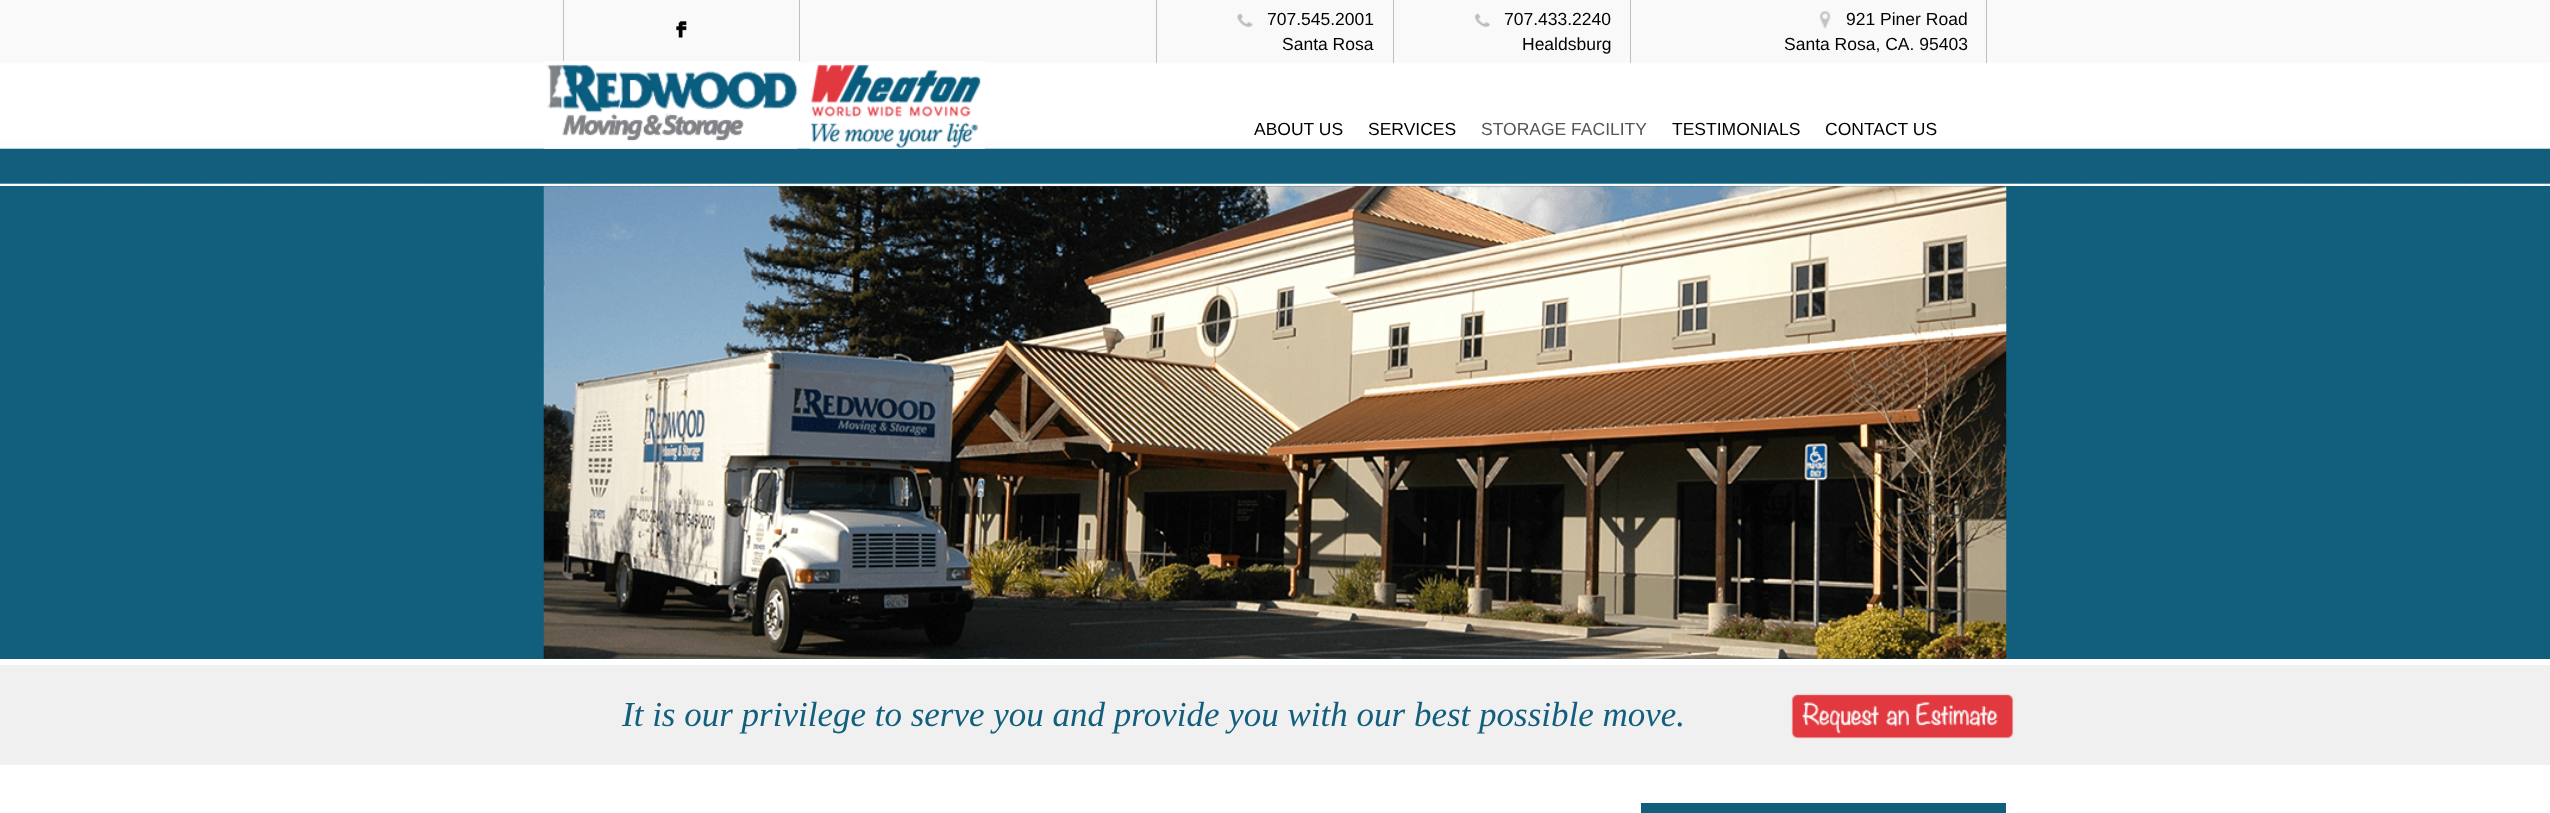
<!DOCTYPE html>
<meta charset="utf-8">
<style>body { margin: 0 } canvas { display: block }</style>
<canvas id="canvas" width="2550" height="813"></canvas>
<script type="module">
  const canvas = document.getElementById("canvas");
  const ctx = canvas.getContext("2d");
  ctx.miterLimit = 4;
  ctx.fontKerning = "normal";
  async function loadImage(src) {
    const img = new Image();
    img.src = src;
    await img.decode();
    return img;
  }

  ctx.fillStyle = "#ffffff";
  ctx.fillRect(0, 0, 2550, 813);
  ctx.drawImage(await loadImage("img1.png"), 0, 0, 2550, 186);
  ctx.fillStyle = "#bfbfbf";
  ctx.fillRect(799, 0, 1, 61);
  ctx.fillRect(563, 0, 1, 61);
  ctx.drawImage(await loadImage("img2.png"), 676, 21, 11, 17);
  ctx.fillRect(1393, 0, 1, 63);
  ctx.fillRect(1156, 0, 1, 63);
  ctx.drawImage(await loadImage("img3.png"), 1237, 13, 16, 16);
  ctx.font = "17.5px Liberation Sans";
  ctx.fillStyle = "#000000";
  ctx.fillText("707.545.2001", 1267, 25);
  ctx.fillText("Santa Rosa", 1282, 50);
  ctx.fillStyle = "#bfbfbf";
  ctx.fillRect(1630, 0, 1, 63);
  ctx.drawImage(await loadImage("img4.png"), 1475, 13, 15, 16);
  ctx.fillStyle = "#000000";
  ctx.fillText("707.433.2240", 1504, 25);
  ctx.fillText("Healdsburg", 1522, 50);
  ctx.fillStyle = "#bfbfbf";
  ctx.fillRect(1986, 0, 1, 63);
  ctx.drawImage(await loadImage("img5.png"), 1820, 11, 11, 18);
  ctx.fillStyle = "#000000";
  ctx.fillText("921 Piner Road", 1846, 25);
  ctx.fillText("Santa Rosa, CA. 95403", 1784, 50);
  ctx.drawImage(await loadImage("img6.png"), 543, 61, 255, 88);
  ctx.drawImage(await loadImage("img7.png"), 810, 61, 175, 88);
  ctx.fillText("ABOUT US", 1254, 135);
  ctx.fillText("SERVICES", 1368, 135);
  ctx.fillStyle = "#555555";
  ctx.fillText("STORAGE FACILITY", 1481, 135);
  ctx.fillStyle = "#000000";
  ctx.fillText("TESTIMONIALS", 1672, 135);
  ctx.fillText("CONTACT US", 1825, 135);
  ctx.fillStyle = "#125e7d";
  ctx.fillRect(0, 186, 2550, 473);
  ctx.drawImage(await loadImage("img8.png"), 543, 186, 1464, 473);
  ctx.fillStyle = "#f0f0f0";
  ctx.fillRect(0, 665, 2550, 100);
  ctx.font = "italic 35px Liberation Serif";
  ctx.fillStyle = "#125e7d";
  ctx.fillText("It is our privilege to serve you and provide you with our best possible move.", 622, 726);
  ctx.drawImage(await loadImage("img9.png"), 1791, 693, 223, 46);
  ctx.fillRect(1641, 803, 365, 10);
</script>
